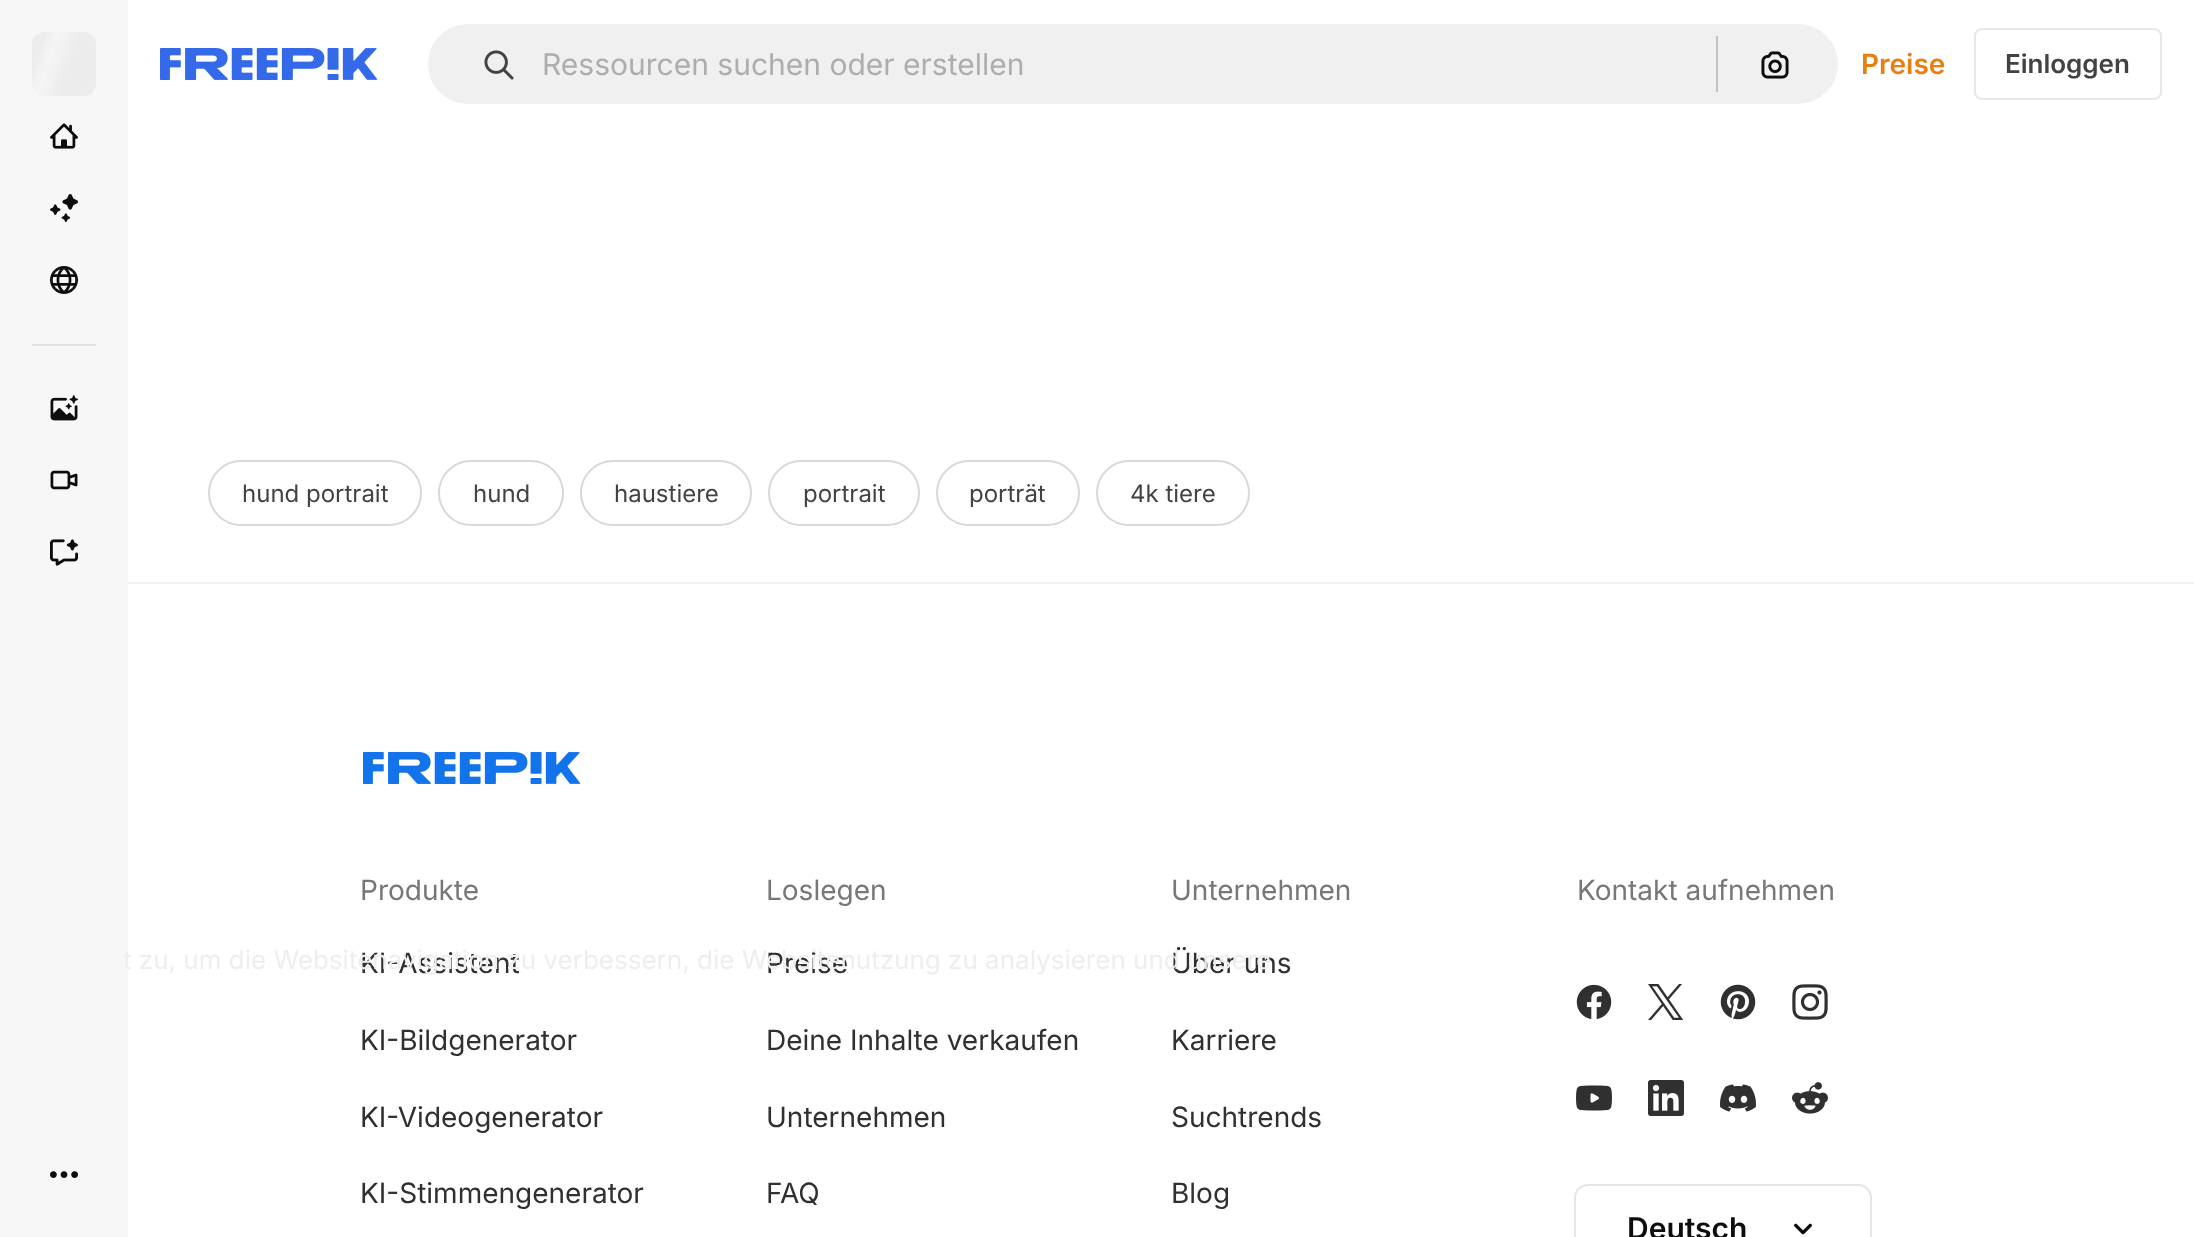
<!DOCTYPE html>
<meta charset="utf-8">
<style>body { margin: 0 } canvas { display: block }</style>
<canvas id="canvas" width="2194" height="1237"></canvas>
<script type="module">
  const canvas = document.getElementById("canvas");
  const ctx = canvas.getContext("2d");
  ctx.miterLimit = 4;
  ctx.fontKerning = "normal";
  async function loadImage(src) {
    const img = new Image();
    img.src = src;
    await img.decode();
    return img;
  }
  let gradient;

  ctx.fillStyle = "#ffffff";
  ctx.fillRect(0, 0, 2194, 1237);
  ctx.fillStyle = "#f7f7f7";
  ctx.fillRect(0, 0, 128, 1237);
  gradient = ctx.createLinearGradient(29, 40, 163, 88);
  gradient.addColorStop(0.08, "#ececec");
  gradient.addColorStop(0.18, "#f5f5f5");
  gradient.addColorStop(0.33, "#ececec");
  ctx.fillStyle = gradient;
  ctx.beginPath();
  ctx.roundRect(32, 32, 64, 64, 12);
  ctx.fill();
  ctx.drawImage(await loadImage("img1.png"), 50, 123, 28, 26);
  ctx.drawImage(await loadImage("img2.png"), 50, 194, 28, 28);
  ctx.drawImage(await loadImage("img3.png"), 50, 266, 28, 28);
  ctx.fillStyle = "#e0e0e0";
  ctx.fillRect(32, 344, 64, 2);
  ctx.drawImage(await loadImage("img4.png"), 50, 395, 28, 26);
  ctx.drawImage(await loadImage("img5.png"), 50, 470, 28, 20);
  ctx.drawImage(await loadImage("img6.png"), 50, 539, 28, 27);
  ctx.drawImage(await loadImage("img7.png"), 50, 1171, 28, 7);
  ctx.drawImage(await loadImage("img8.png"), 160, 48, 218, 32);
  ctx.fillStyle = "#f0f0f0";
  ctx.beginPath();
  ctx.roundRect(427, 23, 1412, 82, 41);
  ctx.fill();
  ctx.strokeStyle = "#ffffff";
  ctx.lineWidth = 2;
  ctx.stroke();
  ctx.drawImage(await loadImage("img9.png"), 484, 50, 30, 30);
  ctx.font = "30px Inter";
  ctx.fillStyle = "#adadad";
  ctx.fillText("Ressourcen suchen oder erstellen", 542, 75);
  ctx.fillStyle = "#c3c3c3";
  ctx.fillRect(1716, 36, 2, 56);
  ctx.drawImage(await loadImage("img10.png"), 1761, 51, 28, 28);
  ctx.font = "600 28px Inter";
  ctx.fillStyle = "#ea7e11";
  ctx.fillText("Preise", 1861, 74);
  ctx.beginPath();
  ctx.roundRect(1975, 29, 186, 70, 7);
  ctx.strokeStyle = "#e7e7e7";
  ctx.stroke();
  ctx.font = "600 26px Inter";
  ctx.fillStyle = "#424242";
  ctx.fillText("Einloggen", 2005, 73);
  ctx.beginPath();
  ctx.roundRect(209, 461, 212, 64, 32);
  ctx.strokeStyle = "#d8d8d8";
  ctx.stroke();
  ctx.font = "24px Inter";
  ctx.fillText("hund portrait", 242, 502);
  ctx.beginPath();
  ctx.roundRect(439, 461, 124, 64, 32);
  ctx.stroke();
  ctx.fillText("hund", 473, 502);
  ctx.beginPath();
  ctx.roundRect(581, 461, 170, 64, 32);
  ctx.stroke();
  ctx.fillText("haustiere", 614, 502);
  ctx.beginPath();
  ctx.roundRect(769, 461, 150, 64, 32);
  ctx.stroke();
  ctx.fillText("portrait", 803, 502);
  ctx.beginPath();
  ctx.roundRect(937, 461, 142, 64, 32);
  ctx.stroke();
  ctx.fillText("porträt", 969, 502);
  ctx.beginPath();
  ctx.roundRect(1097, 461, 152, 64, 32);
  ctx.stroke();
  ctx.fillText("4k tiere", 1130, 502);
  ctx.fillStyle = "#f0f0f0";
  ctx.fillRect(128, 582, 2066, 2);
  ctx.drawImage(await loadImage("img11.png"), 363, 752, 218, 32);
  ctx.font = "28px Inter";
  ctx.fillStyle = "#777777";
  ctx.fillText("Produkte", 360, 900);
  ctx.fillStyle = "#303030";
  ctx.fillText("KI-Assistent", 360, 973);
  ctx.fillText("KI-Bildgenerator", 360, 1050);
  ctx.fillText("KI-Videogenerator", 360, 1127);
  ctx.fillText("KI-Stimmengenerator", 360, 1203);
  ctx.fillStyle = "#777777";
  ctx.fillText("Loslegen", 766, 900);
  ctx.fillStyle = "#303030";
  ctx.fillText("Preise", 766, 973);
  ctx.fillText("Deine Inhalte verkaufen", 766, 1050);
  ctx.fillText("Unternehmen", 766, 1127);
  ctx.fillText("FAQ", 766, 1203);
  ctx.fillStyle = "#777777";
  ctx.fillText("Unternehmen", 1171, 900);
  ctx.fillStyle = "#303030";
  ctx.fillText("Über uns", 1171, 973);
  ctx.fillText("Karriere", 1171, 1050);
  ctx.fillText("Suchtrends", 1171, 1127);
  ctx.fillText("Blog", 1171, 1203);
  ctx.fillStyle = "#777777";
  ctx.fillText("Kontakt aufnehmen", 1577, 900);
  ctx.drawImage(await loadImage("img12.png"), 1576, 984, 36, 36);
  ctx.drawImage(await loadImage("img13.png"), 1648, 984, 36, 36);
  ctx.drawImage(await loadImage("img14.png"), 1720, 984, 36, 36);
  ctx.drawImage(await loadImage("img15.png"), 1792, 984, 36, 36);
  ctx.drawImage(await loadImage("img16.png"), 1576, 1085, 36, 26);
  ctx.drawImage(await loadImage("img17.png"), 1648, 1080, 36, 36);
  ctx.drawImage(await loadImage("img18.png"), 1720, 1084, 36, 28);
  ctx.drawImage(await loadImage("img19.png"), 1792, 1082, 36, 32);
  ctx.beginPath();
  ctx.roundRect(1575, 1185, 296, 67, 13);
  ctx.strokeStyle = "#e6e6e6";
  ctx.stroke();
  ctx.font = "600 30px Inter";
  ctx.fillStyle = "#0d0d0d";
  ctx.fillText("Deutsch", 1627, 1239);
  ctx.drawImage(await loadImage("img20.png"), 1794, 1223, 18, 12);
  ctx.font = "26px Inter";
  ctx.fillStyle = "#eeeeee";
  ctx.fillText("t zu, um die Websitenavigation zu verbessern, die Websitenutzung zu analysieren und unsere", 123, 969);
</script>
